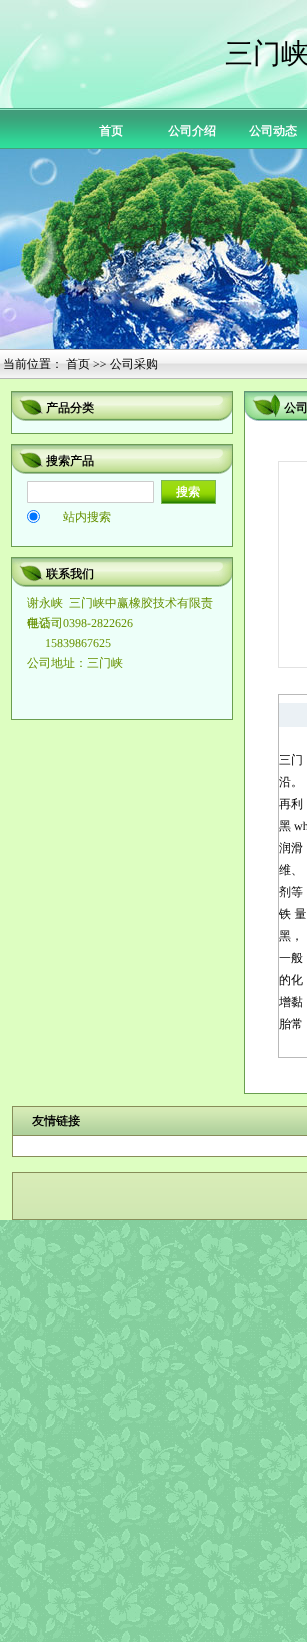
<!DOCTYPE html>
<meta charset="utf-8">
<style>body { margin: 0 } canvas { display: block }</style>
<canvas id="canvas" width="307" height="1642"></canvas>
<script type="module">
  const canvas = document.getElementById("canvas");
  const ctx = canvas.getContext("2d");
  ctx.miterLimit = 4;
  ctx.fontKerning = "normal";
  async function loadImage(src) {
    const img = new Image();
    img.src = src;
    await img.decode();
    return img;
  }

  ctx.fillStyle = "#ffffff";
  ctx.fillRect(0, 0, 307, 1642);
  ctx.drawImage(await loadImage("img1.png"), 0, 1220, 307, 422);
  ctx.fillStyle = "#ddfec1";
  ctx.fillRect(0, 379, 307, 841);
  ctx.drawImage(await loadImage("img2.png"), 0, 0, 307, 108);
  ctx.font = "500 28px WenQuanYi Zen Hei";
  ctx.fillStyle = "#000000";
  ctx.fillText("三门峡", 225, 63);
  ctx.drawImage(await loadImage("img3.png"), 0, 108, 307, 41);
  ctx.font = "bold 12px WenQuanYi Zen Hei";
  ctx.fillStyle = "#ffffff";
  ctx.fillText("首页", 99, 135);
  ctx.fillText("公司介绍", 168, 135);
  ctx.fillText("公司动态", 249, 135);
  ctx.drawImage(await loadImage("img4.png"), 0, 149, 307, 200);
  ctx.drawImage(await loadImage("img5.png"), 0, 349, 307, 30);
  ctx.font = "500 12px WenQuanYi Zen Hei";
  ctx.fillStyle = "#000000";
  ctx.fillText("当前位置：", 3, 368);
  ctx.fillText("首页", 66, 368);
  ctx.font = "12px Liberation Serif";
  ctx.fillText(">>", 93, 368);
  ctx.font = "500 12px WenQuanYi Zen Hei";
  ctx.fillText("公司采购", 110, 368);
  ctx.drawImage(await loadImage("img6.png"), 11, 391, 222, 30);
  ctx.font = "bold 12px WenQuanYi Zen Hei";
  ctx.fillText("产品分类", 46, 412);
  ctx.fillStyle = "#edfff9";
  ctx.fillRect(12, 421, 220, 12);
  ctx.fillStyle = "#6a9e50";
  ctx.fillRect(232, 421, 1, 13);
  ctx.fillRect(11, 433, 222, 1);
  ctx.fillRect(11, 421, 1, 13);
  ctx.drawImage(await loadImage("img6.png"), 11, 444, 222, 30);
  ctx.fillStyle = "#000000";
  ctx.fillText("搜索产品", 46, 465);
  ctx.fillStyle = "#edfff9";
  ctx.fillRect(12, 474, 220, 72);
  ctx.fillStyle = "#6a9e50";
  ctx.fillRect(232, 474, 1, 73);
  ctx.fillRect(11, 546, 222, 1);
  ctx.fillRect(11, 474, 1, 73);
  ctx.fillStyle = "#ffffff";
  ctx.beginPath();
  ctx.rect(27.5, 481.5, 126, 21);
  ctx.fill();
  ctx.strokeStyle = "#cccccc";
  ctx.stroke();
  ctx.drawImage(await loadImage("img7.png"), 161, 480, 55, 24);
  ctx.fillText("搜索", 176, 496);
  ctx.beginPath();
  ctx.arc(33.5, 516.5, 6, 0, Math.PI * 2);
  ctx.fill();
  ctx.strokeStyle = "#0075ff";
  ctx.stroke();
  ctx.fillStyle = "#0075ff";
  ctx.beginPath();
  ctx.arc(33.5, 516.5, 4, 0, Math.PI * 2);
  ctx.fill();
  ctx.font = "500 12px WenQuanYi Zen Hei";
  ctx.fillStyle = "#669100";
  ctx.fillText("站内搜索", 63, 521);
  ctx.drawImage(await loadImage("img6.png"), 11, 557, 222, 30);
  ctx.font = "bold 12px WenQuanYi Zen Hei";
  ctx.fillStyle = "#000000";
  ctx.fillText("联系我们", 46, 578);
  ctx.fillStyle = "#edfff9";
  ctx.fillRect(12, 587, 220, 132);
  ctx.fillStyle = "#6a9e50";
  ctx.fillRect(232, 587, 1, 133);
  ctx.fillRect(11, 719, 222, 1);
  ctx.fillRect(11, 587, 1, 133);
  ctx.font = "500 12px WenQuanYi Zen Hei";
  ctx.fillStyle = "#669100";
  ctx.fillText("谢永峡", 27, 607);
  ctx.fillText("三门峡中赢橡胶技术有限责", 69, 607);
  ctx.fillText("任公司", 27, 627);
  ctx.fillText("电话：", 27, 627);
  ctx.font = "12px Liberation Serif";
  ctx.fillText("0398-2822626", 63, 627);
  ctx.fillText("15839867625", 45, 647);
  ctx.font = "500 12px WenQuanYi Zen Hei";
  ctx.fillText("公司地址：三门峡", 27, 667);
  ctx.drawImage(await loadImage("img8.png"), 244, 391, 63, 30);
  ctx.font = "bold 12px WenQuanYi Zen Hei";
  ctx.fillStyle = "#000000";
  ctx.fillText("公司", 284, 412);
  ctx.fillStyle = "#ffffff";
  ctx.fillRect(245, 421, 62, 672);
  ctx.fillStyle = "#699e4f";
  ctx.fillRect(244, 1093, 63, 1);
  ctx.fillRect(244, 421, 1, 673);
  ctx.strokeStyle = "#e2e2e2";
  ctx.strokeRect(278.5, 461.5, 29, 206);
  ctx.strokeStyle = "#b9b9b9";
  ctx.strokeRect(278.5, 694.5, 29, 363);
  ctx.fillStyle = "#ebf1f5";
  ctx.fillRect(279, 703, 28, 24);
  ctx.font = "500 12px WenQuanYi Zen Hei";
  ctx.fillStyle = "#000000";
  ctx.fillText("三门", 279, 764);
  ctx.fillText("沿。", 279, 786);
  ctx.fillText("再利", 279, 808);
  ctx.fillText("黑", 279, 830);
  ctx.font = "12px Liberation Serif";
  ctx.fillText("wh", 294, 830);
  ctx.font = "500 12px WenQuanYi Zen Hei";
  ctx.fillText("润滑", 279, 852);
  ctx.fillText("维、", 279, 874);
  ctx.fillText("剂等", 279, 896);
  ctx.fillText("铁 量", 279, 918);
  ctx.fillText("黑，", 279, 940);
  ctx.fillText("一般", 279, 962);
  ctx.fillText("的化", 279, 984);
  ctx.fillText("增黏", 279, 1006);
  ctx.fillText("胎常", 279, 1028);
  ctx.drawImage(await loadImage("img9.png"), 12, 1106, 20, 30);
  ctx.drawImage(await loadImage("img10.png"), 32, 1106, 275, 30);
  ctx.font = "bold 12px WenQuanYi Zen Hei";
  ctx.fillText("友情链接", 32, 1125);
  ctx.fillStyle = "#ffffff";
  ctx.fillRect(13, 1136, 294, 20);
  ctx.fillStyle = "#878d59";
  ctx.fillRect(12, 1156, 295, 1);
  ctx.fillRect(12, 1136, 1, 21);
  ctx.drawImage(await loadImage("img11.png"), 13, 1173, 294, 46);
  ctx.strokeStyle = "#878d59";
  ctx.strokeRect(12.5, 1172.5, 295, 47);
</script>
